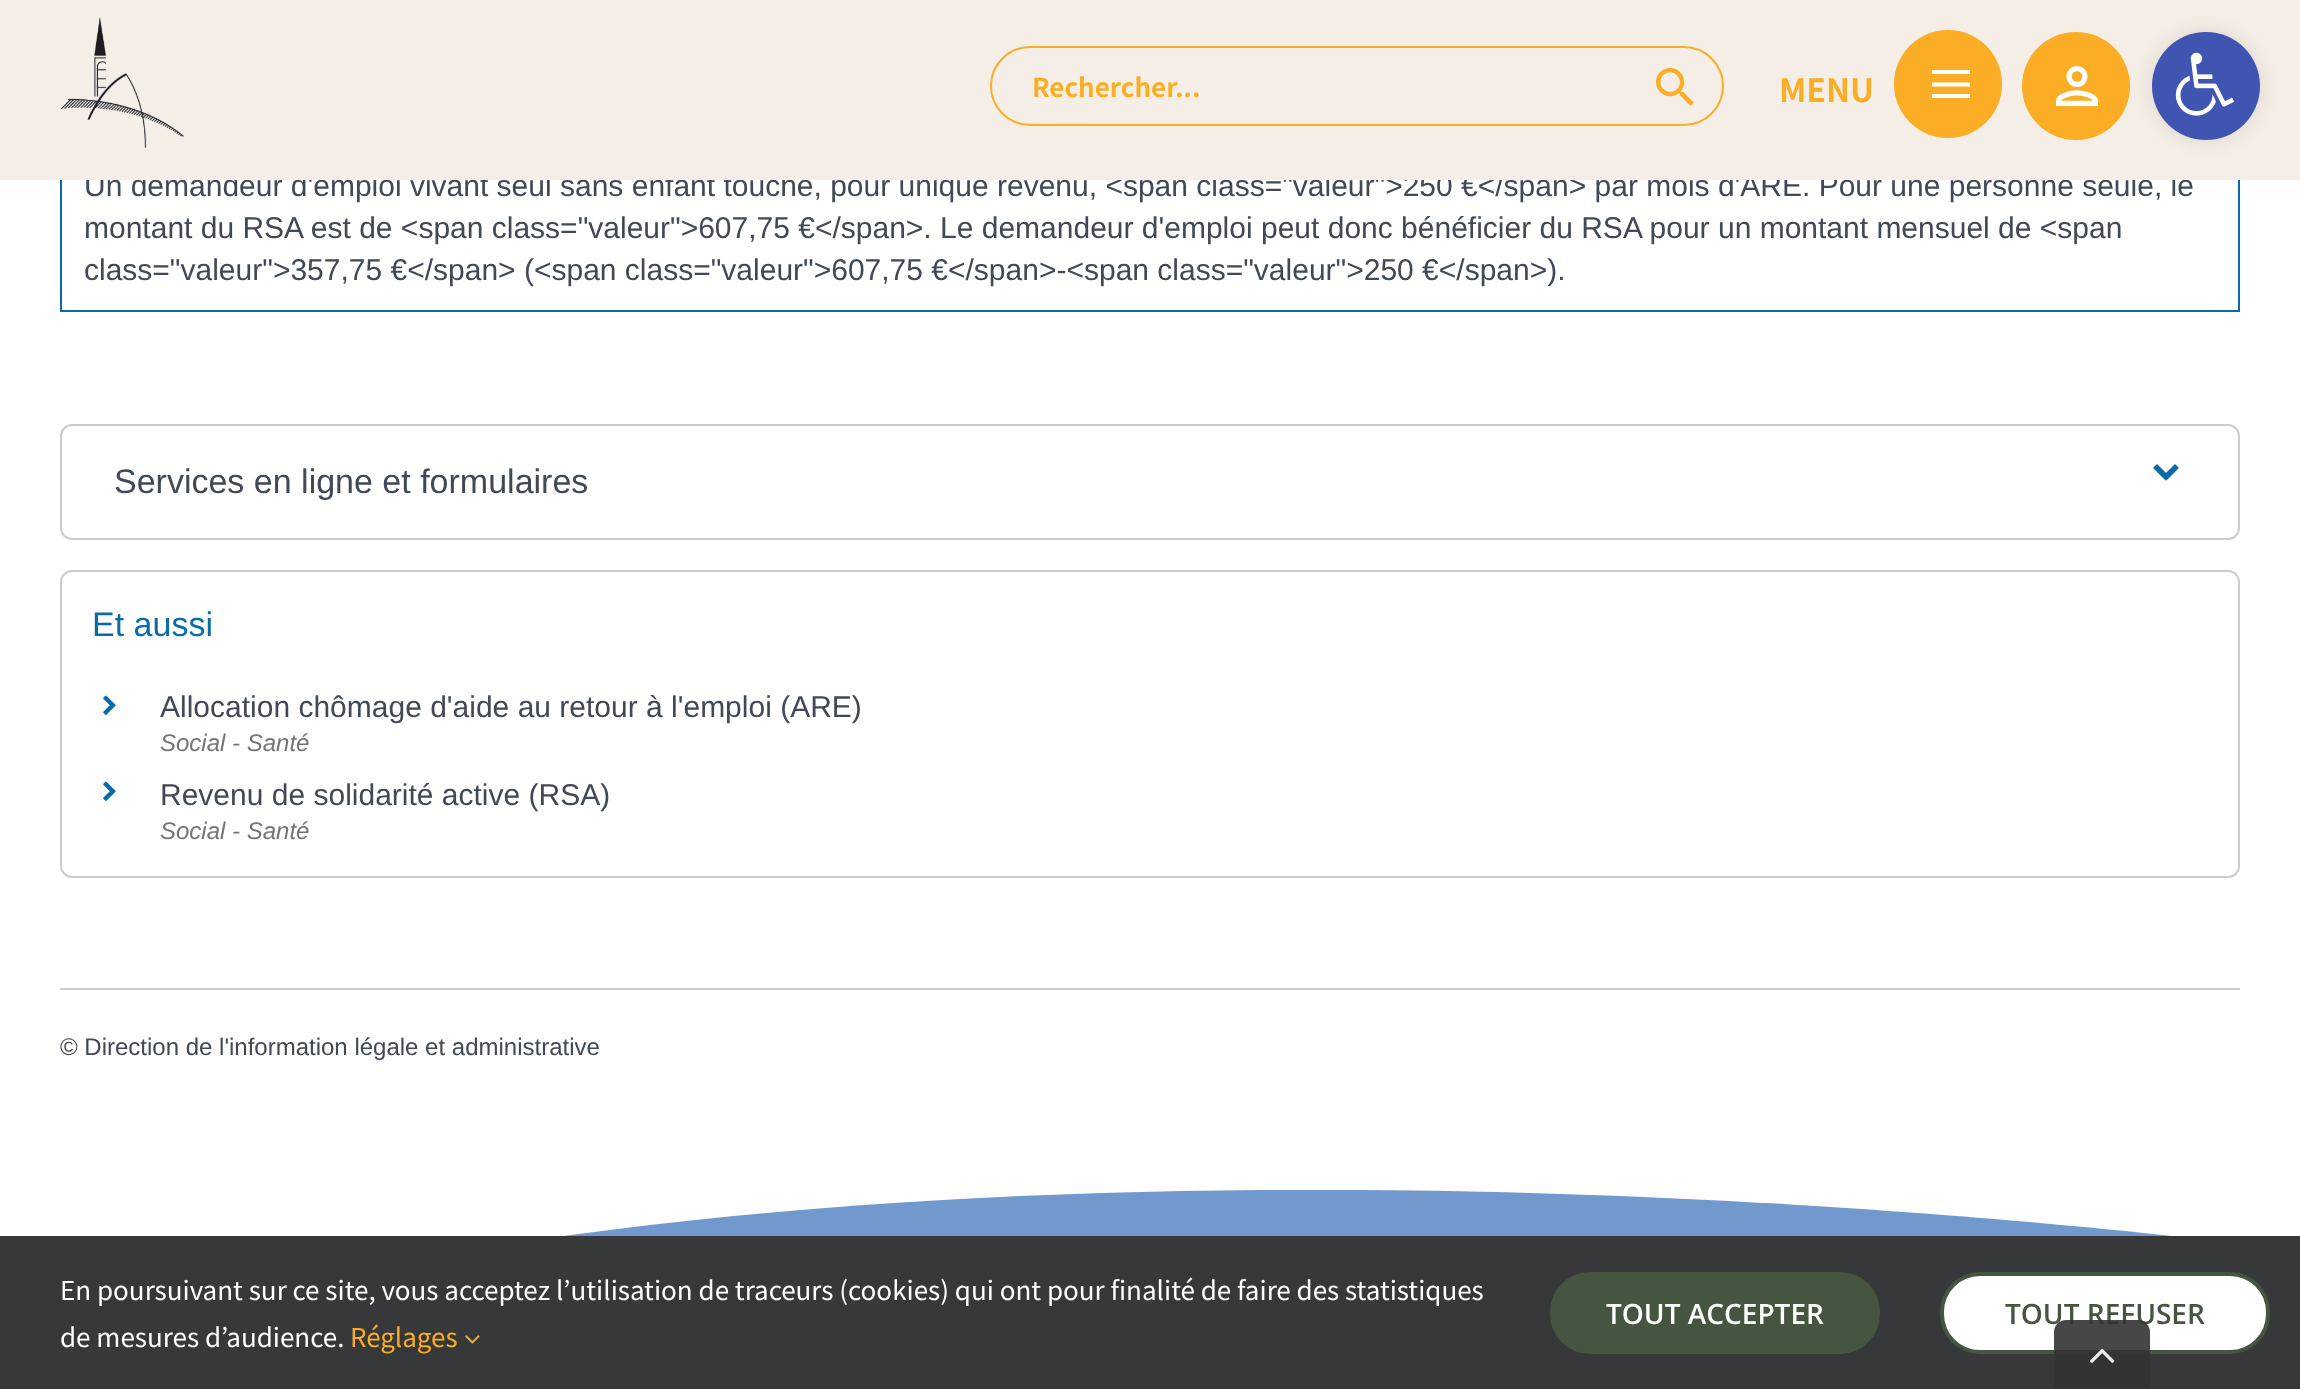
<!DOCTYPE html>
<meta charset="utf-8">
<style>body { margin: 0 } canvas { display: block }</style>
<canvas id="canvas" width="2300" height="1389"></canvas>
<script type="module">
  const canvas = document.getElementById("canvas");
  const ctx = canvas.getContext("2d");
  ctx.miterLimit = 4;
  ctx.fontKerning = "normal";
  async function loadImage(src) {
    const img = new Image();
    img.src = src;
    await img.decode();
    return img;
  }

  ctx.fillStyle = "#ffffff";
  ctx.fillRect(0, 0, 2300, 1389);
  ctx.strokeStyle = "#0b6ba8";
  ctx.lineWidth = 2;
  ctx.strokeRect(61, 83, 2178, 228);
  ctx.font = "30px Liberation Sans";
  ctx.fillStyle = "#414856";
  ctx.fillText("Un demandeur d'emploi vivant seul sans enfant touche, pour unique revenu, <span class=\"valeur\">250 €<\/span> par mois d'ARE. Pour une personne seule, le", 84, 196);
  ctx.fillStyle = "#f4eee6";
  ctx.fillRect(0, 0, 2300, 180);
  ctx.drawImage(await loadImage("img1.png"), 61, 17, 123, 131);
  ctx.beginPath();
  ctx.roundRect(991, 47, 732, 78, 39);
  ctx.strokeStyle = "#faad25";
  ctx.stroke();
  ctx.font = "bold 26px Noto Sans JP";
  ctx.fillStyle = "#faad25";
  ctx.fillText("Rechercher...", 1032, 97);
  ctx.drawImage(await loadImage("img2.png"), 1656, 68, 38, 38);
  ctx.beginPath();
  ctx.arc(1948, 84, 54, 0, Math.PI * 2);
  ctx.fill();
  ctx.fillStyle = "#ffffff";
  ctx.fillRect(1932, 70, 38, 4);
  ctx.fillRect(1932, 94, 38, 4);
  ctx.beginPath();
  ctx.moveTo(1932, 84.5);
  ctx.lineTo(1970, 84.5);
  ctx.strokeStyle = "#ffffff";
  ctx.lineWidth = 4;
  ctx.stroke();
  ctx.font = "bold 32px Noto Sans JP";
  ctx.fillStyle = "#faad25";
  ctx.fillText("MENU", 1779, 102);
  ctx.beginPath();
  ctx.arc(2076, 86, 54, 0, Math.PI * 2);
  ctx.fill();
  ctx.drawImage(await loadImage("img3.png"), 2056, 66, 42, 40);
  ctx.font = "30px Liberation Sans";
  ctx.fillStyle = "#414856";
  ctx.fillText("montant du RSA est de <span class=\"valeur\">607,75 €<\/span>. Le demandeur d'emploi peut donc bénéficier du RSA pour un montant mensuel de <span", 84, 238);
  ctx.fillText("class=\"valeur\">357,75 €<\/span> (<span class=\"valeur\">607,75 €<\/span>-<span class=\"valeur\">250 €<\/span>).", 84, 280);
  ctx.beginPath();
  ctx.roundRect(61, 425, 2178, 114, 11);
  ctx.strokeStyle = "#cccccc";
  ctx.lineWidth = 2;
  ctx.stroke();
  ctx.font = "34px Liberation Sans";
  ctx.fillText("Services en ligne et formulaires", 114, 493);
  ctx.drawImage(await loadImage("img4.png"), 2153, 464, 26, 17);
  ctx.beginPath();
  ctx.roundRect(61, 571, 2178, 306, 11);
  ctx.stroke();
  ctx.fillStyle = "#0b6ba8";
  ctx.fillText("Et aussi", 92, 636);
  ctx.drawImage(await loadImage("img5.png"), 103, 695, 13, 20);
  ctx.font = "30px Liberation Sans";
  ctx.fillStyle = "#414856";
  ctx.fillText("Allocation chômage d'aide au retour à l'emploi (ARE)", 160, 717);
  ctx.font = "italic 24px Liberation Sans";
  ctx.fillStyle = "#757575";
  ctx.fillText("Social - Santé", 160, 751);
  ctx.drawImage(await loadImage("img5.png"), 103, 781, 13, 20);
  ctx.font = "30px Liberation Sans";
  ctx.fillStyle = "#414856";
  ctx.fillText("Revenu de solidarité active (RSA)", 160, 805);
  ctx.font = "italic 24px Liberation Sans";
  ctx.fillStyle = "#757575";
  ctx.fillText("Social - Santé", 160, 839);
  ctx.fillStyle = "#cccccc";
  ctx.fillRect(60, 988, 2180, 2);
  ctx.font = "24px Liberation Sans";
  ctx.fillStyle = "#414856";
  ctx.fillText("© Direction de l'information légale et administrative", 60, 1055);
  ctx.save();
  ctx.beginPath();
  ctx.rect(0, 1190, 2300, 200);
  ctx.clip();
  ctx.fillStyle = "#7299ce";
  ctx.beginPath();
  ctx.moveTo(0, 1367);
  ctx.bezierCurveTo(869, 1054, 2300, 1251, 2300, 1251);
  ctx.lineTo(2300, 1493);
  ctx.lineTo(0, 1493);
  ctx.closePath();
  ctx.fill();
  ctx.restore();
  ctx.fillStyle = "rgba(0, 0, 0, 0.1)";
  ctx.filter = "blur(10px)";
  ctx.beginPath();
  ctx.roundRect(2152, 32, 108, 108, 54);
  ctx.fill();
  ctx.filter = "none";
  ctx.fillStyle = "#4054b2";
  ctx.beginPath();
  ctx.arc(2206, 86, 54, 0, Math.PI * 2);
  ctx.fill();
  ctx.drawImage(await loadImage("img6.png"), 2175, 52, 59, 64);
  ctx.fillStyle = "#363839";
  ctx.fillRect(0, 1236, 2300, 153);
  ctx.font = "26px Noto Sans JP";
  ctx.fillStyle = "#ffffff";
  ctx.fillText("En poursuivant sur ce site, vous acceptez l’utilisation de traceurs (cookies) qui ont pour finalité de faire des statistiques", 60, 1300);
  ctx.fillText("de mesures d’audience.", 60, 1347);
  ctx.fillStyle = "#faad25";
  ctx.fillText("Réglages", 350, 1347);
  ctx.drawImage(await loadImage("img7.png"), 465, 1335, 15, 9);
  ctx.fillStyle = "#465540";
  ctx.beginPath();
  ctx.roundRect(1552, 1274, 326, 78, 38);
  ctx.fill();
  ctx.strokeStyle = "#465540";
  ctx.lineWidth = 4;
  ctx.stroke();
  ctx.font = "600 28px Open Sans";
  ctx.fillStyle = "#ffffff";
  ctx.fillText("TOUT ACCEPTER", 1606, 1324);
  ctx.beginPath();
  ctx.roundRect(1942, 1274, 326, 78, 38);
  ctx.fill();
  ctx.stroke();
  ctx.fillStyle = "#465540";
  ctx.fillText("TOUT REFUSER", 2005, 1324);
  ctx.fillStyle = "rgba(51, 51, 51, 0.9)";
  ctx.beginPath();
  ctx.moveTo(2066, 1320);
  ctx.lineTo(2138, 1320);
  ctx.bezierCurveTo(2144.5, 1320, 2150, 1325.5, 2150, 1332);
  ctx.lineTo(2150, 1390);
  ctx.lineTo(2054, 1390);
  ctx.lineTo(2054, 1332);
  ctx.bezierCurveTo(2054, 1325.5, 2059.5, 1320, 2066, 1320);
  ctx.closePath();
  ctx.fill();
  ctx.drawImage(await loadImage("img8.png"), 2090, 1348, 25, 15);
</script>
